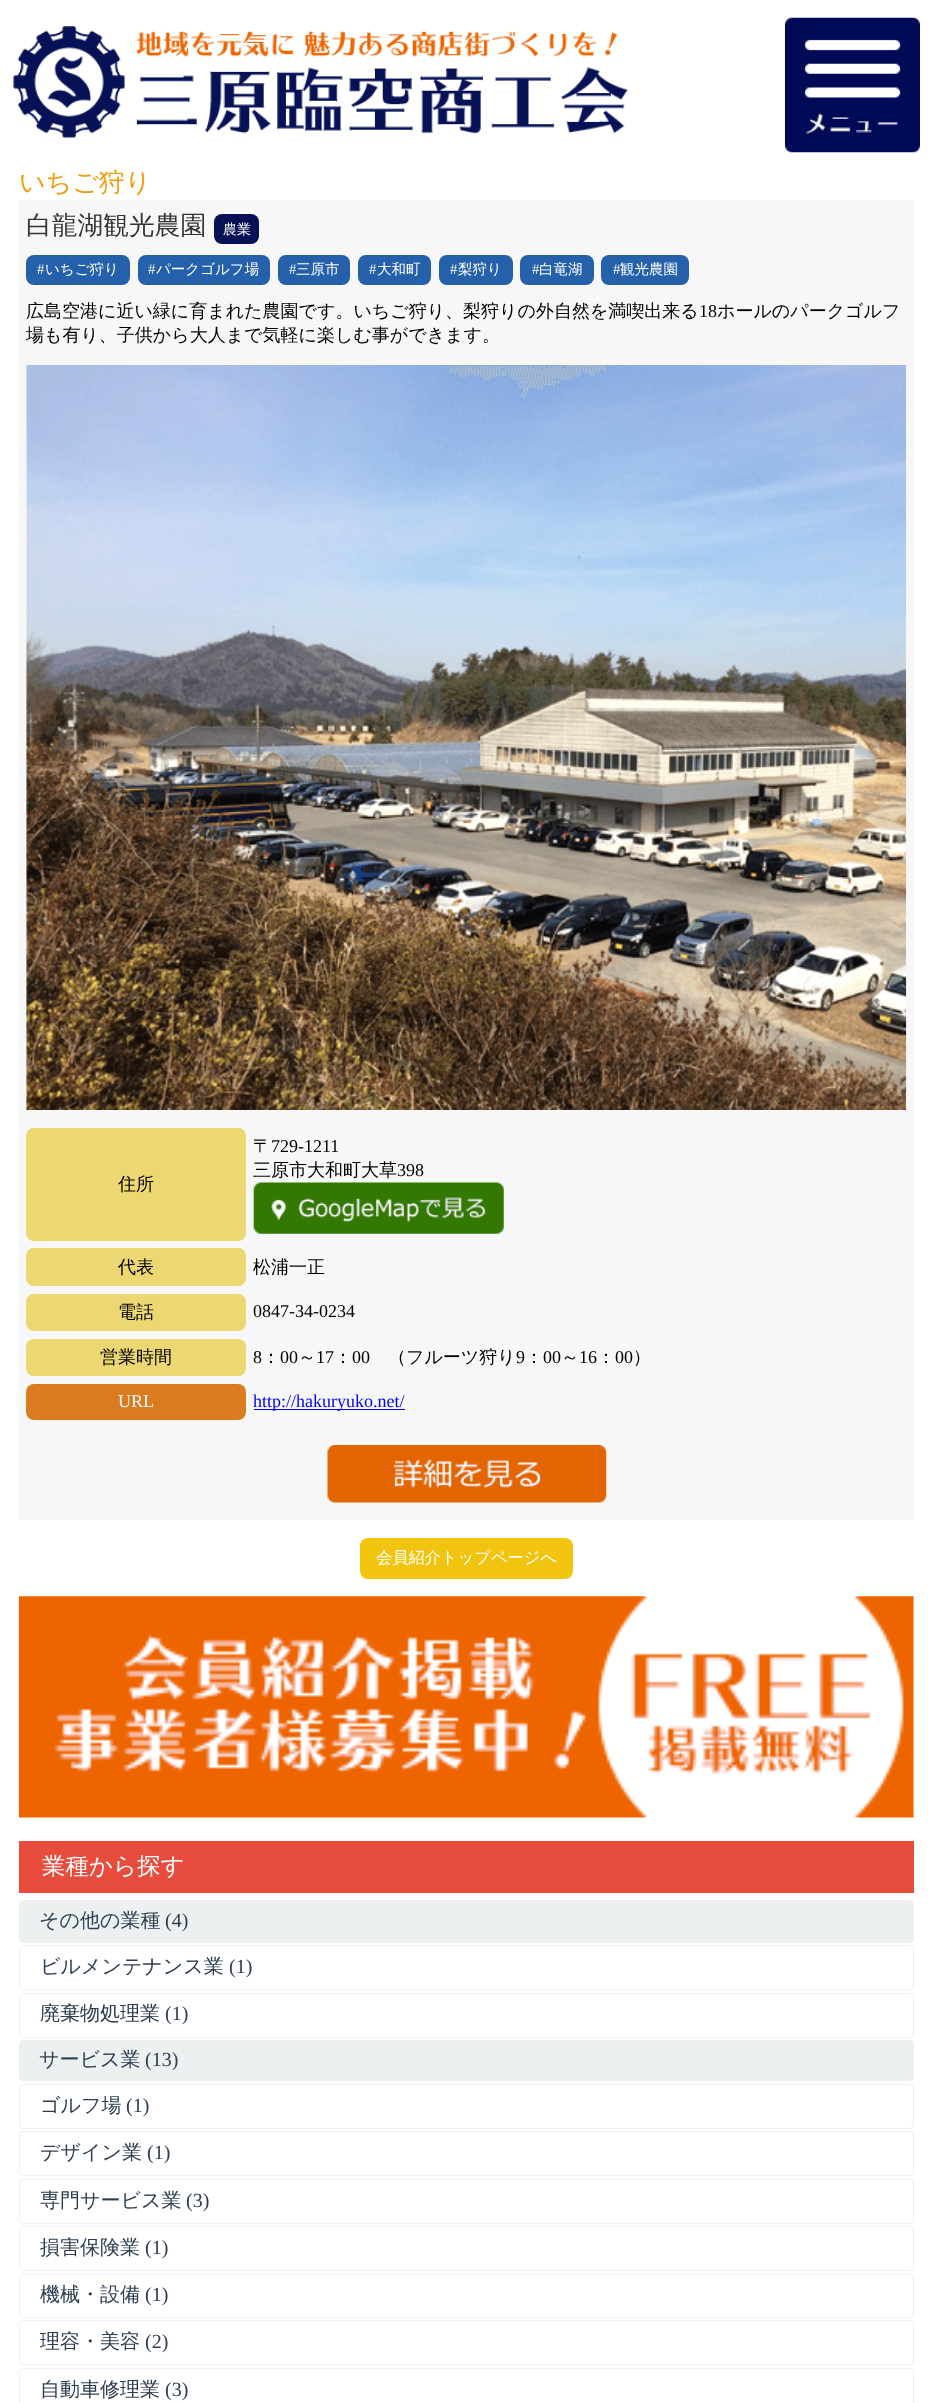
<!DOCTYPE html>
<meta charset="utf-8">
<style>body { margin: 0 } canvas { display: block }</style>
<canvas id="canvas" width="932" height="2403"></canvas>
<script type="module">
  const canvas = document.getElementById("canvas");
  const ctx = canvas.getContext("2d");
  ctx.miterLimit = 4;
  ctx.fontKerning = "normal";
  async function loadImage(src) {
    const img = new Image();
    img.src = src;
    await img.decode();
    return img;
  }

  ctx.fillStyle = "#ffffff";
  ctx.fillRect(0, 0, 932, 2403);
  ctx.drawImage(await loadImage("img1.png"), 13, 26, 615, 112);
  ctx.drawImage(await loadImage("img2.png"), 785, 17, 135, 136);
  ctx.font = "500 26px WenQuanYi Zen Hei";
  ctx.fillStyle = "#f39c12";
  ctx.fillText("いちご狩り", 19, 191);
  ctx.fillStyle = "#f7f7f7";
  ctx.fillRect(19, 200, 895, 1320);
  ctx.font = "500 25.75px WenQuanYi Zen Hei";
  ctx.fillStyle = "#333333";
  ctx.fillText("白龍湖観光農園", 26, 234);
  ctx.fillStyle = "#071256";
  ctx.beginPath();
  ctx.roundRect(214, 214, 45, 30, 8);
  ctx.fill();
  ctx.font = "500 14px WenQuanYi Zen Hei";
  ctx.fillStyle = "#ffffff";
  ctx.fillText("農業", 223, 234);
  ctx.fillStyle = "#2561aa";
  ctx.beginPath();
  ctx.roundRect(26, 255, 104, 30, 8);
  ctx.fill();
  ctx.font = "14.5px Liberation Serif";
  ctx.fillStyle = "#ffffff";
  ctx.fillText("#", 37, 274);
  ctx.font = "500 14.5px WenQuanYi Zen Hei";
  ctx.fillText("いちご狩り", 45, 274);
  ctx.fillStyle = "#2561aa";
  ctx.beginPath();
  ctx.roundRect(138, 255, 132, 30, 8);
  ctx.fill();
  ctx.font = "14.5px Liberation Serif";
  ctx.fillStyle = "#ffffff";
  ctx.fillText("#", 148, 274);
  ctx.font = "500 14.5px WenQuanYi Zen Hei";
  ctx.fillText("パークゴルフ場", 156, 274);
  ctx.fillStyle = "#2561aa";
  ctx.beginPath();
  ctx.roundRect(278, 255, 72, 30, 8);
  ctx.fill();
  ctx.font = "14.5px Liberation Serif";
  ctx.fillStyle = "#ffffff";
  ctx.fillText("#", 289, 274);
  ctx.font = "500 14.5px WenQuanYi Zen Hei";
  ctx.fillText("三原市", 296, 274);
  ctx.fillStyle = "#2561aa";
  ctx.beginPath();
  ctx.roundRect(358, 255, 73, 30, 8);
  ctx.fill();
  ctx.font = "14.5px Liberation Serif";
  ctx.fillStyle = "#ffffff";
  ctx.fillText("#", 369, 274);
  ctx.font = "500 14.5px WenQuanYi Zen Hei";
  ctx.fillText("大和町", 377, 274);
  ctx.fillStyle = "#2561aa";
  ctx.beginPath();
  ctx.roundRect(439, 255, 74, 30, 8);
  ctx.fill();
  ctx.font = "14.5px Liberation Serif";
  ctx.fillStyle = "#ffffff";
  ctx.fillText("#", 450, 274);
  ctx.font = "500 14.5px WenQuanYi Zen Hei";
  ctx.fillText("梨狩り", 458, 274);
  ctx.fillStyle = "#2561aa";
  ctx.beginPath();
  ctx.roundRect(520, 255, 74, 30, 8);
  ctx.fill();
  ctx.font = "14.5px Liberation Serif";
  ctx.fillStyle = "#ffffff";
  ctx.fillText("#", 532, 274);
  ctx.font = "500 14.5px WenQuanYi Zen Hei";
  ctx.fillText("白竜湖", 539, 274);
  ctx.fillStyle = "#2561aa";
  ctx.beginPath();
  ctx.roundRect(601, 255, 88, 30, 8);
  ctx.fill();
  ctx.font = "14.5px Liberation Serif";
  ctx.fillStyle = "#ffffff";
  ctx.fillText("#", 613, 274);
  ctx.font = "500 14.5px WenQuanYi Zen Hei";
  ctx.fillText("観光農園", 620, 274);
  ctx.font = "500 18px WenQuanYi Zen Hei";
  ctx.fillStyle = "#000000";
  ctx.fillText("広島空港に近い緑に育まれた農園です。いちご狩り、梨狩りの外自然を満喫出来る", 26, 317);
  ctx.font = "18px Liberation Serif";
  ctx.fillText("18", 699, 317);
  ctx.font = "500 18px WenQuanYi Zen Hei";
  ctx.fillText("ホールのパークゴルフ", 717, 317);
  ctx.fillText("場も有り、子供から大人まで気軽に楽しむ事ができます。", 26, 341);
  ctx.drawImage(await loadImage("img3.png"), 26, 365, 881, 745);
  ctx.fillText("〒", 253, 1152);
  ctx.font = "18px Liberation Serif";
  ctx.fillText("729-1211", 271, 1152);
  ctx.font = "500 18px WenQuanYi Zen Hei";
  ctx.fillText("三原市大和町大草", 253, 1176);
  ctx.font = "18px Liberation Serif";
  ctx.fillText("398", 397, 1176);
  ctx.drawImage(await loadImage("img4.png"), 253, 1182, 251, 52);
  ctx.fillStyle = "#ecd773";
  ctx.beginPath();
  ctx.roundRect(26, 1128, 220, 113, 8);
  ctx.fill();
  ctx.font = "500 18px WenQuanYi Zen Hei";
  ctx.fillStyle = "#000000";
  ctx.fillText("住所", 118, 1190);
  ctx.fillStyle = "#ecd773";
  ctx.beginPath();
  ctx.roundRect(26, 1248, 220, 38, 8);
  ctx.fill();
  ctx.fillStyle = "#000000";
  ctx.fillText("代表", 118, 1273);
  ctx.fillText("松浦一正", 253, 1273);
  ctx.fillStyle = "#ecd773";
  ctx.beginPath();
  ctx.roundRect(26, 1294, 220, 37, 8);
  ctx.fill();
  ctx.fillStyle = "#000000";
  ctx.fillText("電話", 118, 1318);
  ctx.font = "18px Liberation Serif";
  ctx.fillText("0847-34-0234", 253, 1317);
  ctx.fillStyle = "#ecd773";
  ctx.beginPath();
  ctx.roundRect(26, 1339, 220, 37, 8);
  ctx.fill();
  ctx.font = "500 18px WenQuanYi Zen Hei";
  ctx.fillStyle = "#000000";
  ctx.fillText("営業時間", 100, 1363);
  ctx.font = "18px Liberation Serif";
  ctx.fillText("8", 253, 1363);
  ctx.font = "500 18px WenQuanYi Zen Hei";
  ctx.fillText("：", 262, 1363);
  ctx.font = "18px Liberation Serif";
  ctx.fillText("00", 280, 1363);
  ctx.font = "500 18px WenQuanYi Zen Hei";
  ctx.fillText("～", 298, 1363);
  ctx.font = "18px Liberation Serif";
  ctx.fillText("17", 316, 1363);
  ctx.font = "500 18px WenQuanYi Zen Hei";
  ctx.fillText("：", 334, 1363);
  ctx.font = "18px Liberation Serif";
  ctx.fillText("00", 352, 1363);
  ctx.font = "500 18px WenQuanYi Zen Hei";
  ctx.fillText("（フルーツ狩り", 388, 1363);
  ctx.font = "18px Liberation Serif";
  ctx.fillText("9", 516, 1363);
  ctx.font = "500 18px WenQuanYi Zen Hei";
  ctx.fillText("：", 525, 1363);
  ctx.font = "18px Liberation Serif";
  ctx.fillText("00", 543, 1363);
  ctx.font = "500 18px WenQuanYi Zen Hei";
  ctx.fillText("～", 561, 1363);
  ctx.font = "18px Liberation Serif";
  ctx.fillText("16", 579, 1363);
  ctx.font = "500 18px WenQuanYi Zen Hei";
  ctx.fillText("：", 597, 1363);
  ctx.font = "18px Liberation Serif";
  ctx.fillText("00", 615, 1363);
  ctx.font = "500 18px WenQuanYi Zen Hei";
  ctx.fillText("）", 633, 1363);
  ctx.fillStyle = "#da7b1f";
  ctx.beginPath();
  ctx.roundRect(26, 1384, 220, 36, 8);
  ctx.fill();
  ctx.font = "18px Liberation Serif";
  ctx.fillStyle = "#ffffff";
  ctx.fillText("URL", 118, 1407);
  ctx.fillStyle = "#0000ee";
  ctx.fillRect(254, 1409, 151, 1);
  ctx.fillText("http://hakuryuko.net/", 253, 1407);
  ctx.drawImage(await loadImage("img5.png"), 327, 1445, 280, 58);
  ctx.fillStyle = "#f1c40f";
  ctx.beginPath();
  ctx.roundRect(360, 1538, 213, 41, 8);
  ctx.fill();
  ctx.font = "500 16.25px WenQuanYi Zen Hei";
  ctx.fillStyle = "#ffffff";
  ctx.fillText("会員紹介トップページへ", 376, 1563);
  ctx.drawImage(await loadImage("img6.png"), 18, 1596, 896, 222);
  ctx.fillStyle = "#e74c3c";
  ctx.fillRect(19, 1841, 895, 52);
  ctx.font = "500 23.5px WenQuanYi Zen Hei";
  ctx.fillStyle = "#ffffff";
  ctx.fillText("業種から探す", 42, 1874);
  ctx.fillStyle = "#ecf0f1";
  ctx.beginPath();
  ctx.roundRect(19, 1900, 895, 43, 4);
  ctx.fill();
  ctx.font = "500 20px WenQuanYi Zen Hei";
  ctx.fillStyle = "#2c3e50";
  ctx.fillText("その他の業種", 39, 1927);
  ctx.font = "20px Liberation Serif";
  ctx.fillText("(4)", 165, 1927);
  ctx.beginPath();
  ctx.roundRect(19.5, 1945.5, 894, 44, 3.5);
  ctx.strokeStyle = "#ecf0f1";
  ctx.stroke();
  ctx.font = "500 20px WenQuanYi Zen Hei";
  ctx.fillText("ビルメンテナンス業", 40, 1973);
  ctx.font = "20px Liberation Serif";
  ctx.fillText("(1)", 229, 1973);
  ctx.beginPath();
  ctx.roundRect(19.5, 1993.5, 894, 44, 3.5);
  ctx.stroke();
  ctx.font = "500 20px WenQuanYi Zen Hei";
  ctx.fillText("廃棄物処理業", 40, 2020);
  ctx.font = "20px Liberation Serif";
  ctx.fillText("(1)", 165, 2020);
  ctx.fillStyle = "#ecf0f1";
  ctx.beginPath();
  ctx.roundRect(19, 2040, 895, 41, 4);
  ctx.fill();
  ctx.font = "500 20px WenQuanYi Zen Hei";
  ctx.fillStyle = "#2c3e50";
  ctx.fillText("サービス業", 39, 2066);
  ctx.font = "20px Liberation Serif";
  ctx.fillText("(13)", 145, 2066);
  ctx.beginPath();
  ctx.roundRect(19.5, 2084.5, 894, 44, 3.5);
  ctx.stroke();
  ctx.font = "500 20px WenQuanYi Zen Hei";
  ctx.fillText("ゴルフ場", 40, 2112);
  ctx.font = "20px Liberation Serif";
  ctx.fillText("(1)", 126, 2112);
  ctx.beginPath();
  ctx.roundRect(19.5, 2131.5, 894, 44, 3.5);
  ctx.stroke();
  ctx.font = "500 20px WenQuanYi Zen Hei";
  ctx.fillText("デザイン業", 40, 2159);
  ctx.font = "20px Liberation Serif";
  ctx.fillText("(1)", 147, 2159);
  ctx.beginPath();
  ctx.roundRect(19.5, 2179.5, 894, 44, 3.5);
  ctx.stroke();
  ctx.font = "500 20px WenQuanYi Zen Hei";
  ctx.fillText("専門サービス業", 40, 2207);
  ctx.font = "20px Liberation Serif";
  ctx.fillText("(3)", 186, 2207);
  ctx.beginPath();
  ctx.roundRect(19.5, 2226.5, 894, 44, 3.5);
  ctx.stroke();
  ctx.font = "500 20px WenQuanYi Zen Hei";
  ctx.fillText("損害保険業", 40, 2254);
  ctx.font = "20px Liberation Serif";
  ctx.fillText("(1)", 145, 2254);
  ctx.beginPath();
  ctx.roundRect(19.5, 2274.5, 894, 43, 3.5);
  ctx.stroke();
  ctx.font = "500 20px WenQuanYi Zen Hei";
  ctx.fillText("機械・設備", 40, 2301);
  ctx.font = "20px Liberation Serif";
  ctx.fillText("(1)", 145, 2301);
  ctx.beginPath();
  ctx.roundRect(19.5, 2320.5, 894, 44, 3.5);
  ctx.stroke();
  ctx.font = "500 20px WenQuanYi Zen Hei";
  ctx.fillText("理容・美容", 40, 2348);
  ctx.font = "20px Liberation Serif";
  ctx.fillText("(2)", 145, 2348);
  ctx.beginPath();
  ctx.roundRect(19.5, 2368.5, 894, 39, 3.5);
  ctx.stroke();
  ctx.font = "500 20px WenQuanYi Zen Hei";
  ctx.fillText("自動車修理業", 40, 2396);
  ctx.font = "20px Liberation Serif";
  ctx.fillText("(3)", 165, 2396);
</script>
